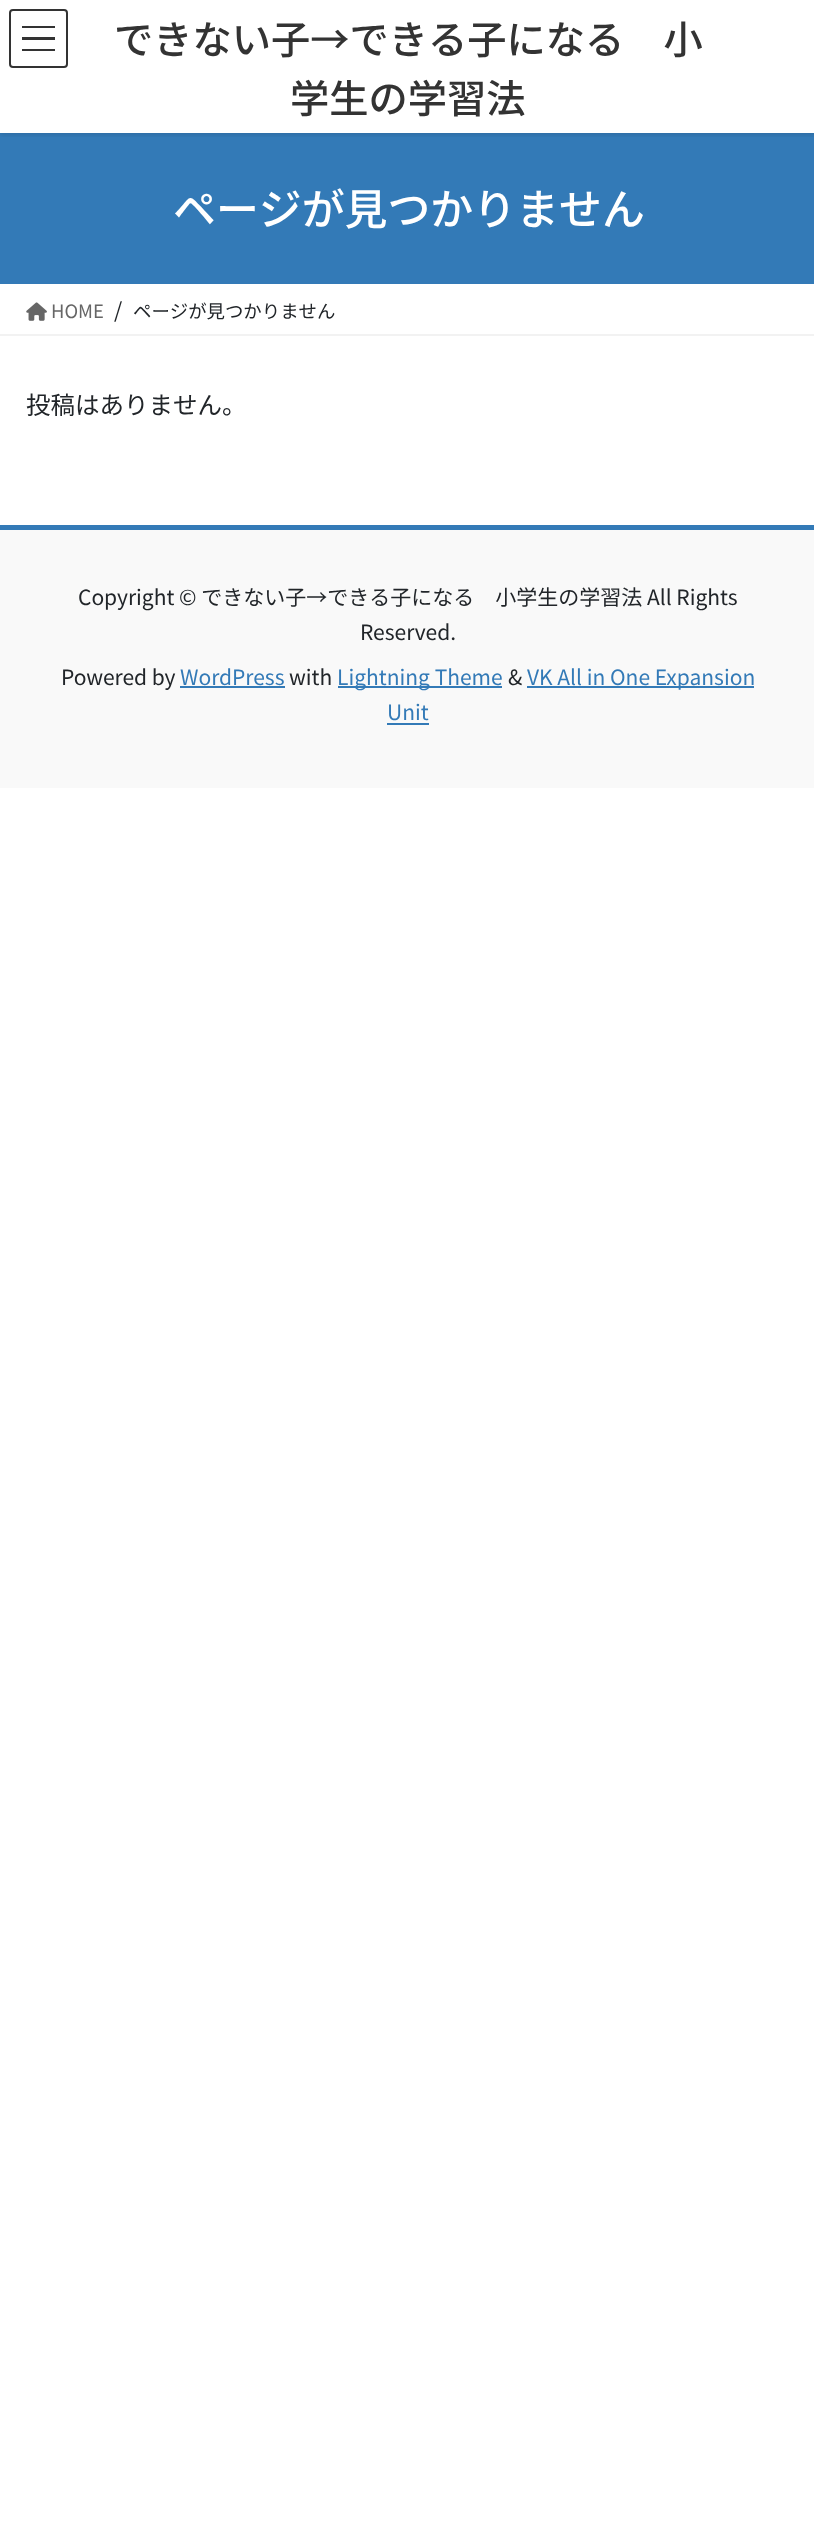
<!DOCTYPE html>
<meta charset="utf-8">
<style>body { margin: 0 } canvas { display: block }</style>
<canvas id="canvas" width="814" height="2528"></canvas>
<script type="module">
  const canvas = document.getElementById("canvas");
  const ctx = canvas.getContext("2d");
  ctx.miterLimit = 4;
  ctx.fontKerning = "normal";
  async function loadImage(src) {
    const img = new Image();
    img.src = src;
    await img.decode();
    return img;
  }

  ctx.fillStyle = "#ffffff";
  ctx.fillRect(0, 0, 814, 2528);
  ctx.fillStyle = "#337ab7";
  ctx.fillRect(0, 133, 814, 151);
  ctx.save();
  ctx.beginPath();
  ctx.rect(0, 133, 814, 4);
  ctx.clip();
  ctx.fillStyle = "rgba(0, 0, 0, 0.1)";
  ctx.filter = "blur(2.5px)";
  ctx.beginPath();
  ctx.rect(0, 2, 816, 133);
  ctx.fill();
  ctx.filter = "none";
  ctx.restore();
  ctx.fillStyle = "#333333";
  ctx.fillRect(22, 26, 33, 2);
  ctx.fillRect(22, 37, 33, 3);
  ctx.fillRect(22, 49, 33, 2);
  ctx.beginPath();
  ctx.roundRect(10, 10, 57, 57, 3);
  ctx.strokeStyle = "#333333";
  ctx.lineWidth = 2;
  ctx.stroke();
  ctx.font = "500 39.25px Noto Sans JP";
  ctx.fillText("できない子→できる子になる　小", 114, 54);
  ctx.fillText("学生の学習法", 290, 113);
  ctx.font = "500 42.9px Noto Sans JP";
  ctx.fillStyle = "#ffffff";
  ctx.fillText("ページが見つかりません", 173, 225);
  ctx.fillStyle = "#f2f2f2";
  ctx.fillRect(0, 334, 814, 2);
  ctx.drawImage(await loadImage("img1.png"), 26, 302, 21, 19);
  ctx.font = "18.4px Noto Sans JP";
  ctx.fillStyle = "#666666";
  ctx.fillText("HOME", 51, 318);
  ctx.font = "21px Noto Sans JP";
  ctx.fillStyle = "#212529";
  ctx.fillText("/", 114, 318);
  ctx.font = "18.4px Noto Sans JP";
  ctx.fillText("ページが見つかりません", 133, 318);
  ctx.font = "24.5px Noto Sans JP";
  ctx.fillText("投稿はありません。", 26, 414);
  ctx.fillStyle = "#f9f9f9";
  ctx.fillRect(0, 530, 814, 258);
  ctx.fillStyle = "#337ab7";
  ctx.fillRect(0, 525, 814, 5);
  ctx.font = "21px Noto Sans JP";
  ctx.fillStyle = "#212529";
  ctx.fillText("Copyright © できない子→できる子になる　小学生の学習法 All Rights", 78, 605);
  ctx.fillText("Reserved.", 360, 640);
  ctx.fillText("Powered by", 61, 685);
  ctx.fillStyle = "#337ab7";
  ctx.fillText("WordPress", 180, 685);
  ctx.fillRect(180, 686, 105, 2);
  ctx.fillStyle = "#212529";
  ctx.fillText("with", 289, 685);
  ctx.fillStyle = "#337ab7";
  ctx.fillRect(338, 686, 164, 2);
  ctx.fillText("Lightning Theme", 337, 685);
  ctx.fillStyle = "#212529";
  ctx.fillText("&", 508, 685);
  ctx.fillStyle = "#337ab7";
  ctx.fillRect(527, 686, 227, 2);
  ctx.fillText("VK All in One Expansion", 527, 685);
  ctx.fillText("Unit", 387, 720);
  ctx.fillRect(387, 723, 42, 2);
</script>
